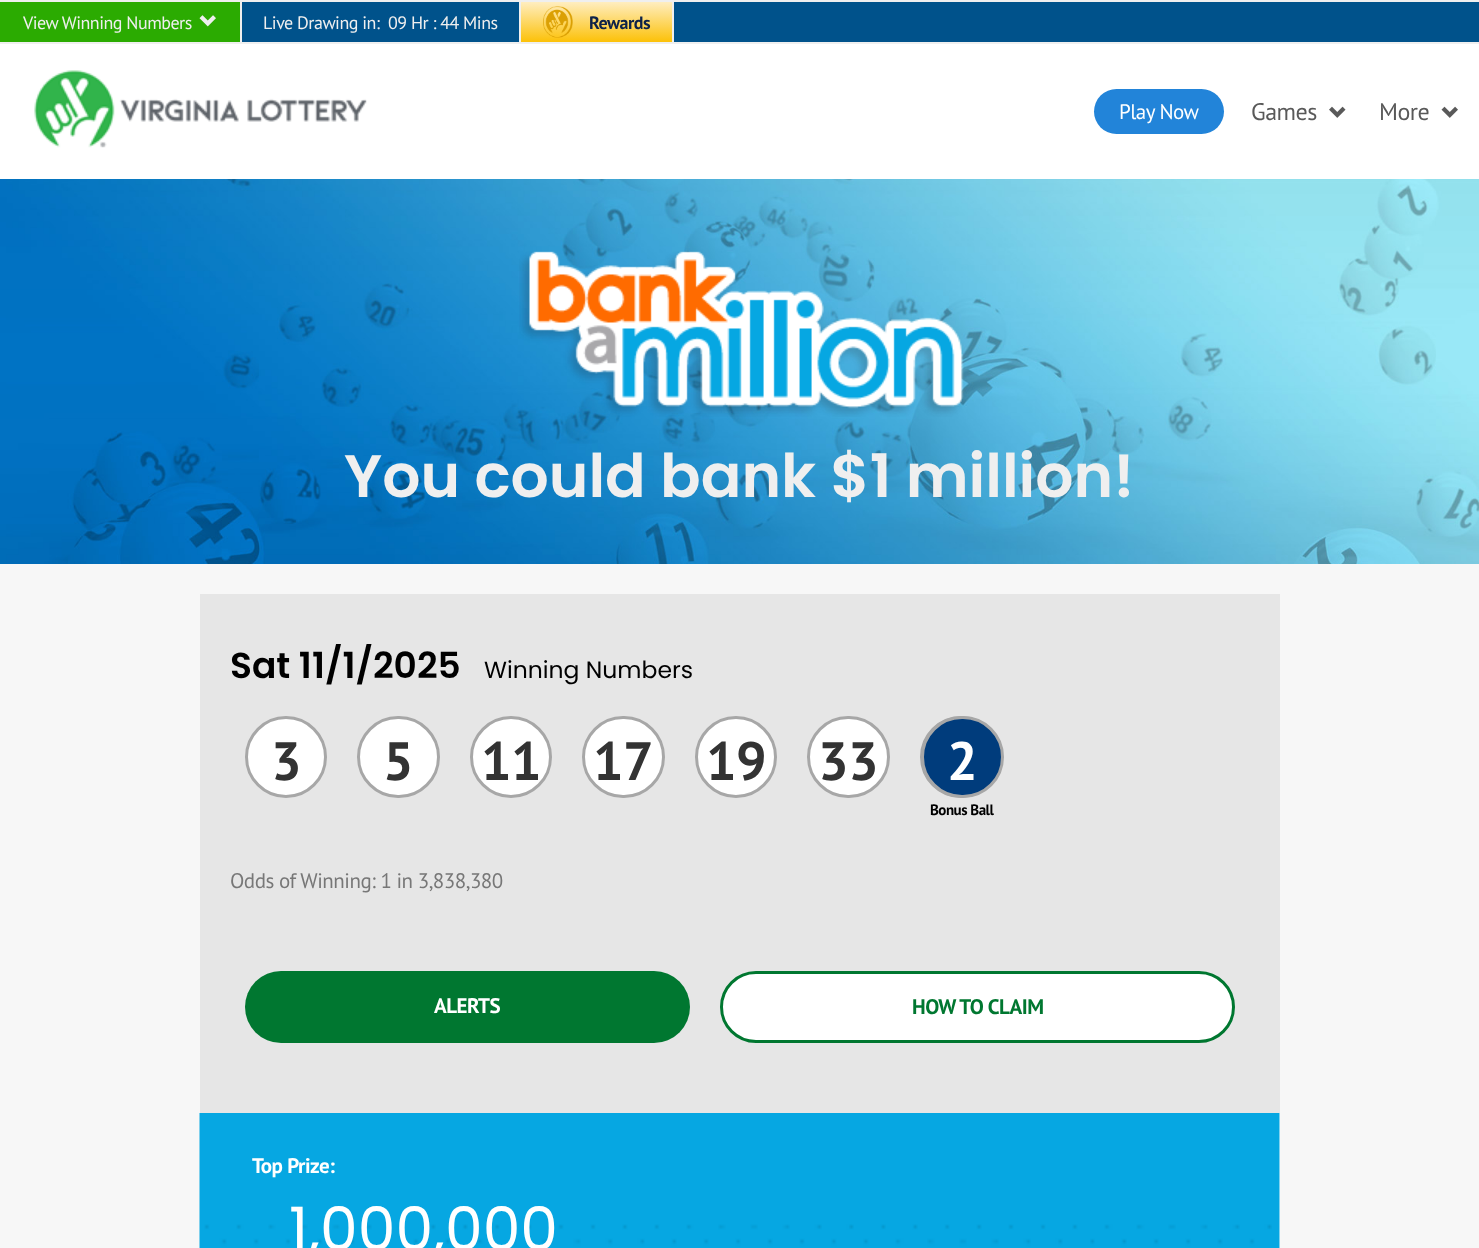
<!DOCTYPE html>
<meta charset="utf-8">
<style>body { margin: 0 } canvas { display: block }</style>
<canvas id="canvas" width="1479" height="1248"></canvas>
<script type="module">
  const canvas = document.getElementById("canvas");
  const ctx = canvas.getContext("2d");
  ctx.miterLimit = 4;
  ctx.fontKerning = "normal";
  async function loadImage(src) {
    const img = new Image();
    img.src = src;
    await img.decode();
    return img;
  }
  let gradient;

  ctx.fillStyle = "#f7f7f7";
  ctx.fillRect(0, 0, 1479, 1248);
  ctx.fillStyle = "#ffffff";
  ctx.fillRect(0, 44, 1479, 135);
  ctx.fillStyle = "#efefef";
  ctx.fillRect(0, 0, 1479, 2);
  ctx.fillStyle = "#2bab01";
  ctx.fillRect(0, 2, 240, 40);
  ctx.fillStyle = "#efefef";
  ctx.fillRect(240, 2, 2, 40);
  ctx.letterSpacing = "-0.5px";
  ctx.font = "18px PT Sans";
  ctx.fillText("View Winning Numbers", 23, 29);
  ctx.drawImage(await loadImage("img1.png"), 199, 15, 17, 12);
  ctx.fillStyle = "#00528b";
  ctx.fillRect(242, 2, 277, 40);
  ctx.fillStyle = "#efefef";
  ctx.fillRect(519, 2, 2, 40);
  ctx.fillText("Live Drawing in:", 263, 29);
  ctx.fillText("09 Hr : 44 Mins", 388, 29);
  gradient = ctx.createLinearGradient(596, 1.5, 596, 42);
  gradient.addColorStop(0, "#ffeec2");
  gradient.addColorStop(1, "#fcc108");
  ctx.fillStyle = gradient;
  ctx.fillRect(521, 2, 151, 40);
  ctx.fillStyle = "#efefef";
  ctx.fillRect(672, 2, 2, 40);
  ctx.drawImage(await loadImage("img2.png"), 543, 6, 30, 32);
  ctx.font = "bold 18px PT Sans";
  ctx.fillStyle = "#0e2248";
  ctx.fillText("Rewards", 589, 29);
  ctx.fillStyle = "#00528b";
  ctx.fillRect(674, 2, 805, 40);
  ctx.fillStyle = "#efefef";
  ctx.fillRect(0, 42, 1479, 2);
  ctx.drawImage(await loadImage("img3.png"), 34, 70, 333, 78);
  ctx.fillStyle = "#2284d9";
  ctx.beginPath();
  ctx.roundRect(1094, 89, 130, 45, 22.5);
  ctx.fill();
  ctx.font = "21px PT Sans";
  ctx.fillStyle = "#ffffff";
  ctx.fillText("Play Now", 1119, 119);
  ctx.font = "24px PT Sans";
  ctx.fillStyle = "#595959";
  ctx.fillText("Games", 1251, 120);
  ctx.drawImage(await loadImage("img4.png"), 1329, 106, 17, 12);
  ctx.fillText("More", 1379, 120);
  ctx.drawImage(await loadImage("img5.png"), 1441, 106, 17, 12);
  ctx.drawImage(await loadImage("img6.png"), 0, 179, 1479, 385);
  ctx.drawImage(await loadImage("img7.png"), 519, 251, 445, 166);
  ctx.letterSpacing = "0px";
  ctx.font = "600 60px Poppins";
  ctx.fillStyle = "#efefef";
  ctx.fillText("You could bank $1 million!", 344, 497);
  ctx.fillStyle = "#ffffff";
  ctx.fillRect(1279, 1113, 1, 135);
  ctx.fillStyle = "#e6e6e6";
  ctx.fillRect(200, 594, 1080, 519);
  ctx.font = "600 36px Poppins";
  ctx.fillStyle = "#000000";
  ctx.fillText("Sat 11/1/2025", 230, 678);
  ctx.font = "23.5px Poppins";
  ctx.fillText("Winning Numbers", 484, 678);
  ctx.fillStyle = "#ffffff";
  ctx.beginPath();
  ctx.arc(286, 757, 39.5, 0, Math.PI * 2);
  ctx.fill();
  ctx.strokeStyle = "#a7a7a7";
  ctx.lineWidth = 3;
  ctx.stroke();
  ctx.letterSpacing = "-0.5px";
  ctx.font = "bold 54px PT Sans";
  ctx.fillStyle = "#333333";
  ctx.fillText("3", 271, 780);
  ctx.fillStyle = "#ffffff";
  ctx.beginPath();
  ctx.roundRect(358.5, 717.5, 80, 79, 39.5);
  ctx.fill();
  ctx.stroke();
  ctx.fillStyle = "#333333";
  ctx.fillText("5", 383, 780);
  ctx.fillStyle = "#ffffff";
  ctx.beginPath();
  ctx.arc(511, 757, 39.5, 0, Math.PI * 2);
  ctx.fill();
  ctx.stroke();
  ctx.fillStyle = "#333333";
  ctx.fillText("11", 481, 780);
  ctx.fillStyle = "#ffffff";
  ctx.beginPath();
  ctx.roundRect(583.5, 717.5, 80, 79, 39.5);
  ctx.fill();
  ctx.stroke();
  ctx.fillStyle = "#333333";
  ctx.fillText("17", 593, 780);
  ctx.fillStyle = "#ffffff";
  ctx.beginPath();
  ctx.arc(736, 757, 39.5, 0, Math.PI * 2);
  ctx.fill();
  ctx.stroke();
  ctx.fillStyle = "#333333";
  ctx.fillText("19", 706, 780);
  ctx.fillStyle = "#ffffff";
  ctx.beginPath();
  ctx.roundRect(808.5, 717.5, 80, 79, 39.5);
  ctx.fill();
  ctx.stroke();
  ctx.fillStyle = "#333333";
  ctx.fillText("33", 818, 780);
  ctx.beginPath();
  ctx.arc(961, 757, 39.5, 0, Math.PI * 2);
  ctx.stroke();
  ctx.fillStyle = "#003c7c";
  ctx.beginPath();
  ctx.roundRect(922.5, 717.5, 80, 79, 39.5);
  ctx.fill();
  ctx.stroke();
  ctx.fillStyle = "#ffffff";
  ctx.fillText("2", 947, 780);
  ctx.font = "bold 15px PT Sans";
  ctx.fillStyle = "#000000";
  ctx.fillText("Bonus Ball", 930, 815);
  ctx.font = "21px PT Sans";
  ctx.fillStyle = "#777777";
  ctx.fillText("Odds of Winning: 1 in 3,838,380", 230, 888);
  ctx.fillStyle = "#007730";
  ctx.beginPath();
  ctx.roundRect(245, 971, 445, 72, 36);
  ctx.fill();
  ctx.font = "bold 21px PT Sans";
  ctx.fillStyle = "#ffffff";
  ctx.fillText("ALERTS", 434, 1013);
  ctx.beginPath();
  ctx.roundRect(721.5, 972.5, 512, 69, 34.5);
  ctx.fill();
  ctx.strokeStyle = "#007730";
  ctx.stroke();
  ctx.fillStyle = "#007730";
  ctx.fillText("HOW TO CLAIM", 912, 1014);
  ctx.drawImage(await loadImage("img8.png"), 199, 1113, 1081, 135);
  ctx.fillStyle = "#ffffff";
  ctx.fillText("Top Prize:", 252, 1173);
  ctx.letterSpacing = "0px";
  ctx.font = "60px Poppins";
  ctx.fillText("1,000,000", 289, 1250);
</script>
